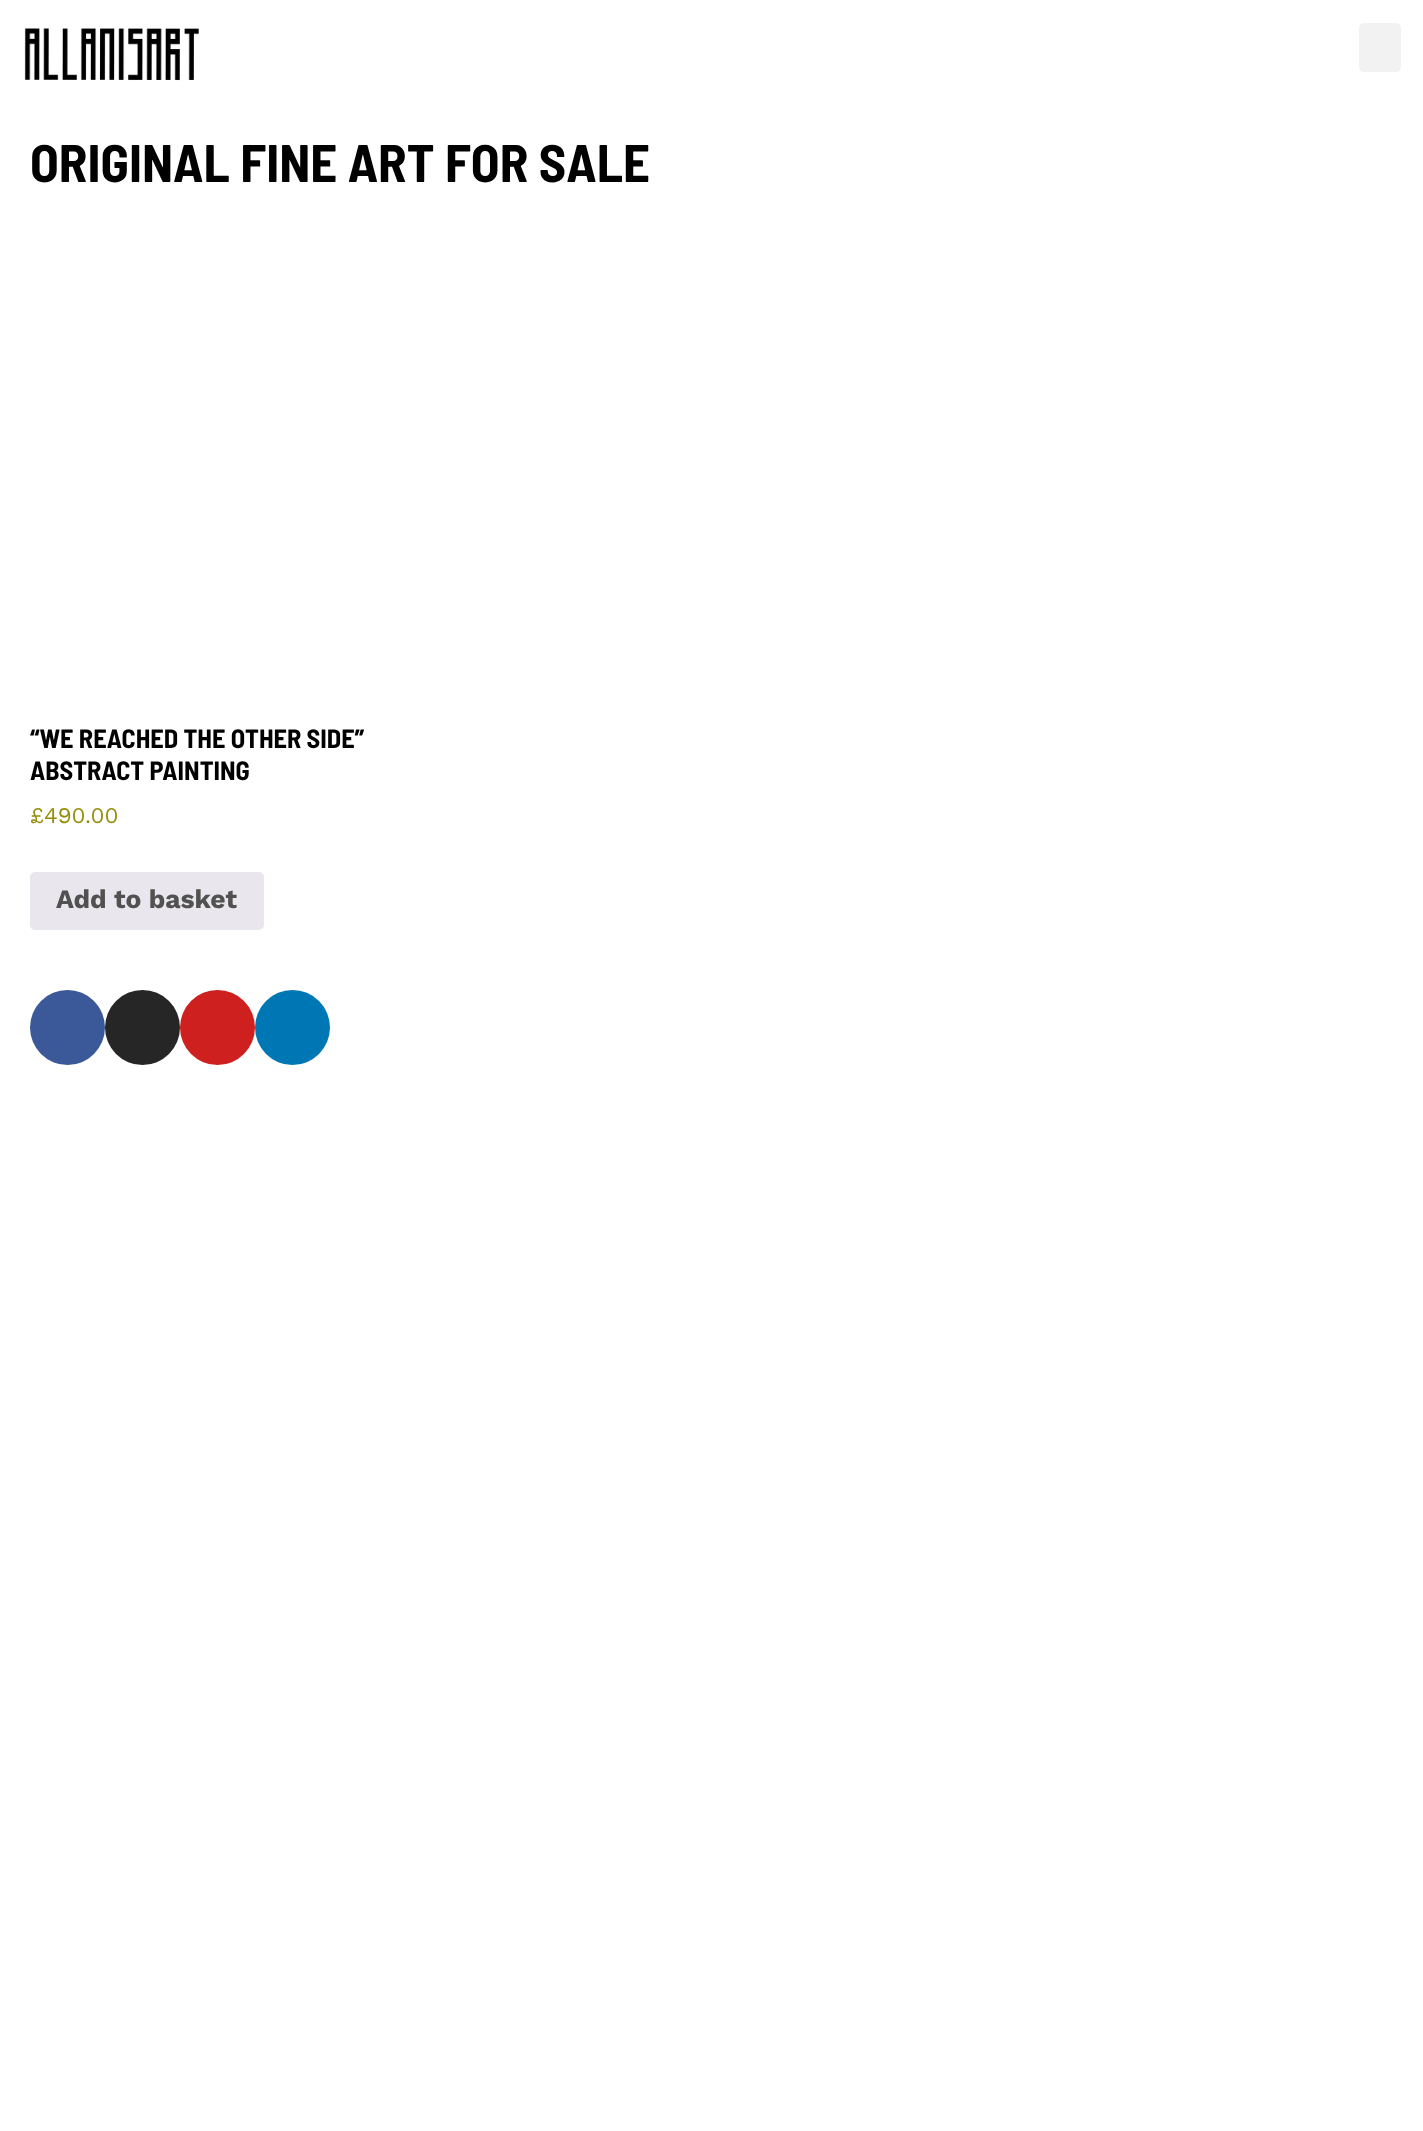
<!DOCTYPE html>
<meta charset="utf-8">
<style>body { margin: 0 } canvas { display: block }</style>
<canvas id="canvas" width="1423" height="2131"></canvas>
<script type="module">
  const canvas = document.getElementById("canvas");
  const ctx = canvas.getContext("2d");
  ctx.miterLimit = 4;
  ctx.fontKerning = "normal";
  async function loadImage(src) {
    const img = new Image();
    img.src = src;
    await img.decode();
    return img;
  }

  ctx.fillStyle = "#ffffff";
  ctx.fillRect(0, 0, 1423, 2131);
  ctx.drawImage(await loadImage("img1.png"), 24, 28, 175, 53);
  ctx.fillStyle = "#f2f2f2";
  ctx.beginPath();
  ctx.roundRect(1359, 23, 42, 49, 5);
  ctx.fill();
  ctx.font = "bold 52.75px Barlow Semi Condensed";
  ctx.fillStyle = "#000000";
  ctx.fillText("ORIGINAL FINE ART FOR SALE", 30, 182);
  ctx.font = "bold 26.4px Barlow Semi Condensed";
  ctx.fillText("“WE REACHED THE OTHER SIDE”", 30, 748);
  ctx.fillText("ABSTRACT PAINTING", 30, 780);
  ctx.font = "22.5px Work Sans";
  ctx.fillStyle = "#958e09";
  ctx.fillText("£490.00", 30, 823);
  ctx.fillStyle = "#e9e6ed";
  ctx.beginPath();
  ctx.roundRect(30, 872, 234, 58, 5);
  ctx.fill();
  ctx.font = "bold 26.4px Work Sans";
  ctx.fillStyle = "#515151";
  ctx.fillText("Add to basket", 56, 908);
  ctx.fillStyle = "#3b5998";
  ctx.beginPath();
  ctx.arc(67.5, 1027.5, 37.5, 0, Math.PI * 2);
  ctx.fill();
  ctx.fillStyle = "#262626";
  ctx.beginPath();
  ctx.arc(142.5, 1027.5, 37.5, 0, Math.PI * 2);
  ctx.fill();
  ctx.fillStyle = "#cd201f";
  ctx.beginPath();
  ctx.arc(217.5, 1027.5, 37.5, 0, Math.PI * 2);
  ctx.fill();
  ctx.fillStyle = "#0077b5";
  ctx.beginPath();
  ctx.arc(292.5, 1027.5, 37.5, 0, Math.PI * 2);
  ctx.fill();
</script>
